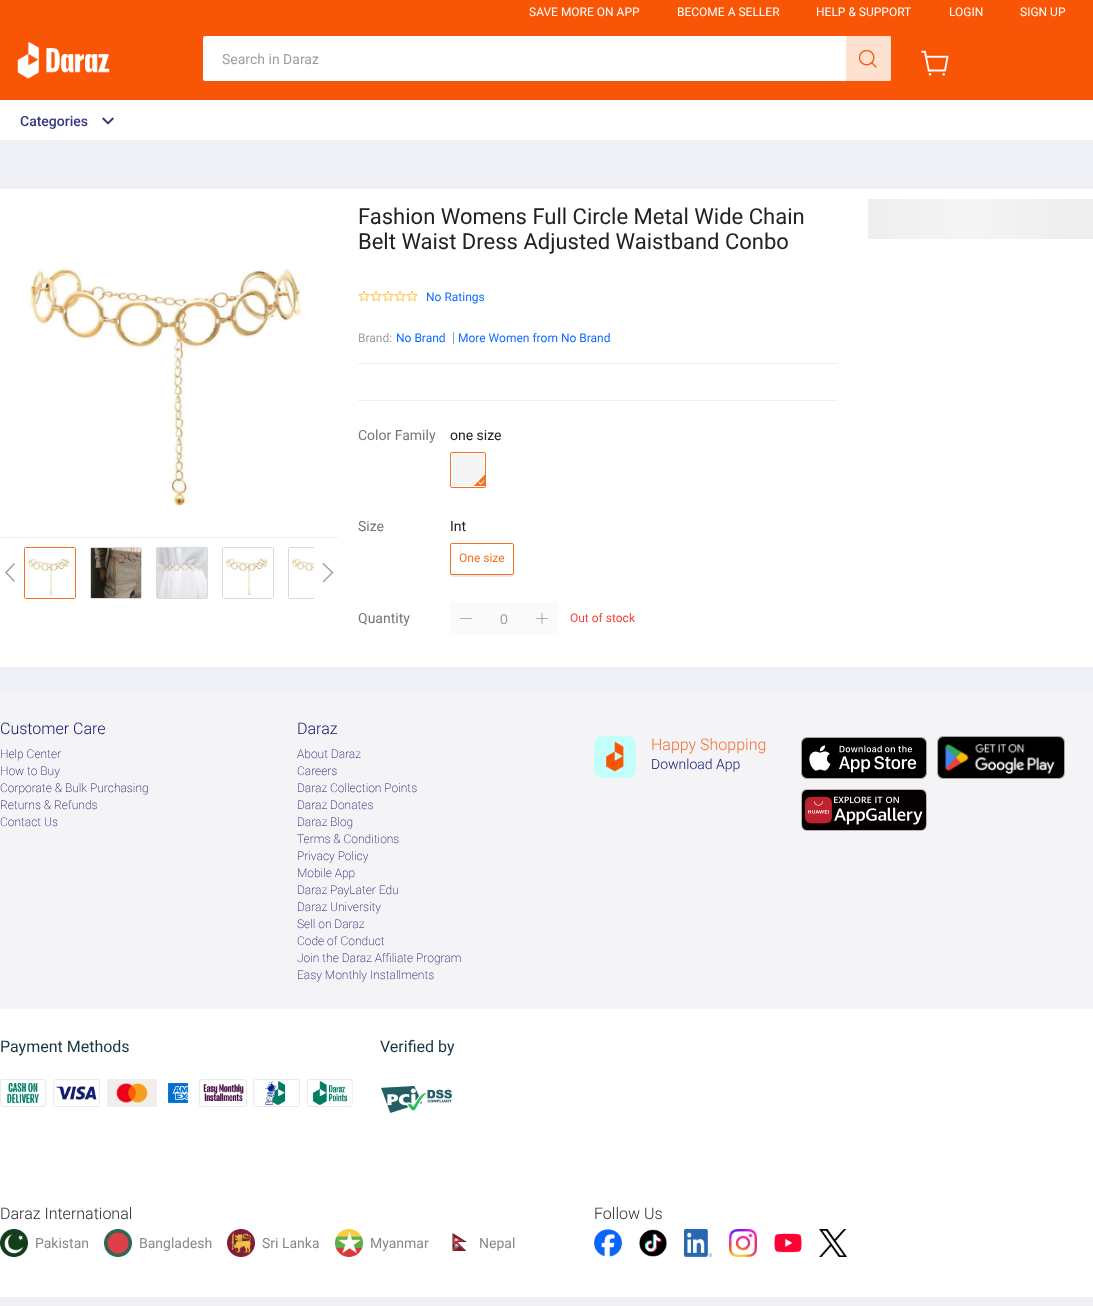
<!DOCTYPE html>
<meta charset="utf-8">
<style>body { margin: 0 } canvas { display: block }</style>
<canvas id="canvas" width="1093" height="1306"></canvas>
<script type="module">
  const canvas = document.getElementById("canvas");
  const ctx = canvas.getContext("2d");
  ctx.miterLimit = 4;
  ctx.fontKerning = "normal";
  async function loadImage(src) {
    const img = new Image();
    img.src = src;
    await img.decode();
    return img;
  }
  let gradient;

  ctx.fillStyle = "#eff0f5";
  ctx.fillRect(0, 0, 1093, 1306);
  ctx.fillStyle = "#ffffff";
  ctx.fillRect(0, 100, 1093, 40);
  ctx.fillStyle = "#f85606";
  ctx.fillRect(0, 0, 1093, 100);
  ctx.font = "12px Roboto";
  ctx.fillStyle = "#ffffff";
  ctx.fillText("SAVE MORE ON APP", 529, 16);
  ctx.fillText("BECOME A SELLER", 677, 16);
  ctx.fillText("HELP & SUPPORT", 816, 16);
  ctx.fillText("LOGIN", 949, 16);
  ctx.fillText("SIGN UP", 1020, 16);
  ctx.drawImage(await loadImage("img1.png"), 17, 42, 93, 37);
  ctx.beginPath();
  ctx.roundRect(203, 36, 688, 45, 2);
  ctx.fill();
  ctx.font = "14px Roboto";
  ctx.fillStyle = "#9e9e9e";
  ctx.fillText("Search in Daraz", 222, 64);
  ctx.fillStyle = "#ffe1d2";
  ctx.beginPath();
  ctx.roundRect(846, 36, 45, 45, [0, 2, 2, 0]);
  ctx.fill();
  ctx.drawImage(await loadImage("img2.png"), 859, 50, 18, 18);
  ctx.drawImage(await loadImage("img3.png"), 921, 50, 28, 26);
  ctx.font = "500 14px Roboto";
  ctx.fillStyle = "#333683";
  ctx.fillText("Categories", 20, 126);
  ctx.drawImage(await loadImage("img4.png"), 102, 117, 12, 8);
  ctx.fillStyle = "#ffffff";
  ctx.fillRect(0, 189, 1093, 478);
  ctx.fillStyle = "#eff0f5";
  ctx.fillRect(0, 537, 338, 1);
  ctx.drawImage(await loadImage("img5.png"), 27, 266, 275, 241);
  ctx.fillStyle = "#9e9e9e";
  ctx.beginPath();
  ctx.moveTo(15, 581);
  ctx.lineTo(7, 572.5);
  ctx.lineTo(15, 564);
  ctx.lineTo(14, 563);
  ctx.lineTo(5, 572.5);
  ctx.lineTo(14, 582);
  ctx.closePath();
  ctx.fill();
  ctx.beginPath();
  ctx.roundRect(24.5, 547.5, 51, 51, 1.5);
  ctx.strokeStyle = "#f57224";
  ctx.stroke();
  ctx.drawImage(await loadImage("img6.png"), 25, 548, 50, 50);
  ctx.beginPath();
  ctx.roundRect(90.5, 547.5, 51, 51, 1.5);
  ctx.strokeStyle = "#dadada";
  ctx.stroke();
  ctx.drawImage(await loadImage("img7.png"), 91, 548, 50, 50);
  ctx.beginPath();
  ctx.roundRect(156.5, 547.5, 51, 51, 1.5);
  ctx.stroke();
  ctx.drawImage(await loadImage("img8.png"), 157, 548, 50, 50);
  ctx.beginPath();
  ctx.roundRect(222.5, 547.5, 51, 51, 1.5);
  ctx.stroke();
  ctx.drawImage(await loadImage("img6.png"), 223, 548, 50, 50);
  ctx.save();
  ctx.beginPath();
  ctx.rect(24, 547, 290, 52);
  ctx.clip();
  ctx.beginPath();
  ctx.roundRect(288.5, 547.5, 51, 51, 1.5);
  ctx.stroke();
  ctx.restore();
  ctx.drawImage(await loadImage("img9.png"), 289, 548, 25, 50);
  ctx.beginPath();
  ctx.moveTo(323.5, 582.5);
  ctx.lineTo(322.5, 581.5);
  ctx.lineTo(331.5, 572.5);
  ctx.lineTo(322.5, 564);
  ctx.lineTo(323.5, 563);
  ctx.lineTo(333.5, 572.5);
  ctx.closePath();
  ctx.fill();
  ctx.font = "22px Roboto";
  ctx.fillStyle = "#212121";
  ctx.fillText("Fashion Womens Full Circle Metal Wide Chain", 358, 224);
  ctx.fillText("Belt Waist Dress Adjusted Waistband Conbo", 358, 249);
  ctx.drawImage(await loadImage("img10.png"), 358, 290, 12, 12);
  ctx.drawImage(await loadImage("img10.png"), 370, 290, 12, 12);
  ctx.drawImage(await loadImage("img10.png"), 382, 290, 12, 12);
  ctx.drawImage(await loadImage("img10.png"), 394, 290, 12, 12);
  ctx.drawImage(await loadImage("img10.png"), 406, 290, 12, 12);
  ctx.font = "12px Roboto";
  ctx.fillStyle = "#136cff";
  ctx.fillText("No Ratings", 426, 301);
  ctx.fillStyle = "#eff0f5";
  ctx.fillRect(358, 363, 480, 1);
  ctx.fillStyle = "#9e9e9e";
  ctx.fillText("Brand:", 358, 342);
  ctx.fillStyle = "#136cff";
  ctx.fillText("No Brand", 396, 342);
  ctx.fillStyle = "#9e9e9e";
  ctx.fillRect(453, 332, 1, 12);
  ctx.fillStyle = "#136cff";
  ctx.fillText("More Women from No Brand", 458, 342);
  ctx.fillStyle = "#eff0f5";
  ctx.fillRect(358, 400, 480, 1);
  ctx.font = "14px Roboto";
  ctx.fillStyle = "#757575";
  ctx.fillText("Color Family", 358, 440);
  ctx.fillStyle = "#212121";
  ctx.fillText("one size", 450, 440);
  ctx.beginPath();
  ctx.roundRect(450.5, 452.5, 35, 35, 1.5);
  ctx.strokeStyle = "#f57224";
  ctx.stroke();
  ctx.fillStyle = "#f5f5f5";
  ctx.fillRect(452, 454, 32, 32);
  ctx.drawImage(await loadImage("img11.png"), 473, 474, 12, 12);
  ctx.fillStyle = "#757575";
  ctx.fillText("Size", 358, 531);
  ctx.fillStyle = "#212121";
  ctx.fillText("Int", 450, 531);
  ctx.fillStyle = "rgba(0, 0, 0, 0.08)";
  ctx.filter = "blur(0.5px)";
  ctx.beginPath();
  ctx.roundRect(450, 545, 64, 32, 2);
  ctx.fill();
  ctx.filter = "none";
  ctx.fillStyle = "#ffffff";
  ctx.beginPath();
  ctx.roundRect(450.5, 543.5, 63, 31, 1.5);
  ctx.fill();
  ctx.strokeStyle = "#f36f21";
  ctx.stroke();
  ctx.font = "12px Roboto";
  ctx.fillStyle = "#f57224";
  ctx.fillText("One size", 459, 562);
  ctx.font = "14px Roboto";
  ctx.fillStyle = "#757575";
  ctx.fillText("Quantity", 358, 623);
  ctx.fillStyle = "#fafafa";
  ctx.fillRect(450, 603, 76, 32);
  ctx.drawImage(await loadImage("img12.png"), 460, 618, 12, 1);
  ctx.fillRect(526, 603, 32, 32);
  ctx.drawImage(await loadImage("img13.png"), 536, 612, 12, 13);
  ctx.font = "14px Liberation Sans";
  ctx.fillStyle = "#9e9e9e";
  ctx.fillText("0", 500, 624);
  ctx.font = "12px Roboto";
  ctx.fillStyle = "#f44336";
  ctx.fillText("Out of stock", 570, 622);
  ctx.fillStyle = "#eeeeee";
  ctx.fillRect(1068, 199, 25, 40);
  gradient = ctx.createLinearGradient(868, 219, 1068, 219);
  gradient.addColorStop(0, "#eeeeee");
  gradient.addColorStop(0.5, "#f5f5f5");
  gradient.addColorStop(1, "#eeeeee");
  ctx.fillStyle = gradient;
  ctx.fillRect(868, 199, 200, 40);
  ctx.fillStyle = "#f4f4f6";
  ctx.fillRect(0, 691, 1093, 318);
  ctx.font = "300 16px Roboto";
  ctx.fillStyle = "#0f136d";
  ctx.fillText("Customer Care", 0, 734);
  ctx.font = "200 12px Roboto";
  ctx.fillText("Help Center", 0, 758);
  ctx.fillText("How to Buy", 0, 775);
  ctx.fillText("Corporate & Bulk Purchasing", 0, 792);
  ctx.fillText("Returns & Refunds", 0, 809);
  ctx.fillText("Contact Us", 0, 826);
  ctx.font = "300 16px Roboto";
  ctx.fillText("Daraz", 297, 734);
  ctx.font = "200 12px Roboto";
  ctx.fillText("About Daraz", 297, 758);
  ctx.fillText("Careers", 297, 775);
  ctx.fillText("Daraz Collection Points", 297, 792);
  ctx.fillText("Daraz Donates", 297, 809);
  ctx.fillText("Daraz Blog", 297, 826);
  ctx.fillText("Terms & Conditions", 297, 843);
  ctx.fillText("Privacy Policy", 297, 860);
  ctx.fillText("Mobile App", 297, 877);
  ctx.fillText("Daraz PayLater Edu", 297, 894);
  ctx.fillText("Daraz University", 297, 911);
  ctx.fillText("Sell on Daraz", 297, 928);
  ctx.fillText("Code of Conduct", 297, 945);
  ctx.fillText("Join the Daraz Affiliate Program", 297, 962);
  ctx.fillText("Easy Monthly Installments", 297, 979);
  ctx.drawImage(await loadImage("img14.png"), 594, 736, 42, 42);
  ctx.font = "300 16px Roboto";
  ctx.fillStyle = "#f36f36";
  ctx.fillText("Happy Shopping", 651, 750);
  ctx.font = "300 14px Roboto";
  ctx.fillStyle = "#0f136d";
  ctx.fillText("Download App", 651, 769);
  ctx.drawImage(await loadImage("img15.png"), 801, 737, 126, 42);
  ctx.drawImage(await loadImage("img16.png"), 937, 736, 128, 43);
  ctx.drawImage(await loadImage("img17.png"), 801, 789, 126, 42);
  ctx.fillStyle = "#ffffff";
  ctx.fillRect(0, 1009, 1093, 288);
  ctx.font = "16px Roboto";
  ctx.fillStyle = "#183544";
  ctx.fillText("Payment Methods", 0, 1052);
  ctx.drawImage(await loadImage("img18.png"), 0, 1079, 46, 28);
  ctx.drawImage(await loadImage("img19.png"), 53, 1079, 47, 28);
  ctx.drawImage(await loadImage("img20.png"), 107, 1079, 50, 28);
  ctx.drawImage(await loadImage("img21.png"), 168, 1083, 21, 21);
  ctx.drawImage(await loadImage("img22.png"), 199, 1079, 48, 28);
  ctx.drawImage(await loadImage("img23.png"), 253, 1079, 47, 28);
  ctx.drawImage(await loadImage("img24.png"), 307, 1079, 46, 28);
  ctx.fillText("Verified by", 380, 1052);
  ctx.drawImage(await loadImage("img25.png"), 381, 1085, 71, 28);
  ctx.font = "300 16px Roboto";
  ctx.fillStyle = "#2a2a2a";
  ctx.fillText("Daraz International", 0, 1219);
  ctx.drawImage(await loadImage("img26.png"), 0, 1229, 28, 28);
  ctx.font = "14px Roboto";
  ctx.fillStyle = "#888888";
  ctx.fillText("Pakistan", 35, 1248);
  ctx.drawImage(await loadImage("img27.png"), 104, 1229, 28, 28);
  ctx.fillText("Bangladesh", 139, 1248);
  ctx.drawImage(await loadImage("img28.png"), 227, 1229, 28, 28);
  ctx.fillText("Sri Lanka", 262, 1248);
  ctx.drawImage(await loadImage("img29.png"), 335, 1229, 28, 28);
  ctx.fillText("Myanmar", 370, 1248);
  ctx.drawImage(await loadImage("img30.png"), 444, 1229, 28, 28);
  ctx.fillText("Nepal", 479, 1248);
  ctx.font = "300 16px Roboto";
  ctx.fillStyle = "#2a2a2a";
  ctx.fillText("Follow Us", 594, 1219);
  ctx.drawImage(await loadImage("img31.png"), 594, 1229, 28, 28);
  ctx.drawImage(await loadImage("img32.png"), 639, 1229, 28, 28);
  ctx.drawImage(await loadImage("img33.png"), 684, 1229, 28, 28);
  ctx.drawImage(await loadImage("img34.png"), 729, 1229, 28, 28);
  ctx.drawImage(await loadImage("img35.png"), 774, 1233, 28, 20);
  ctx.drawImage(await loadImage("img36.png"), 819, 1229, 28, 28);
</script>
